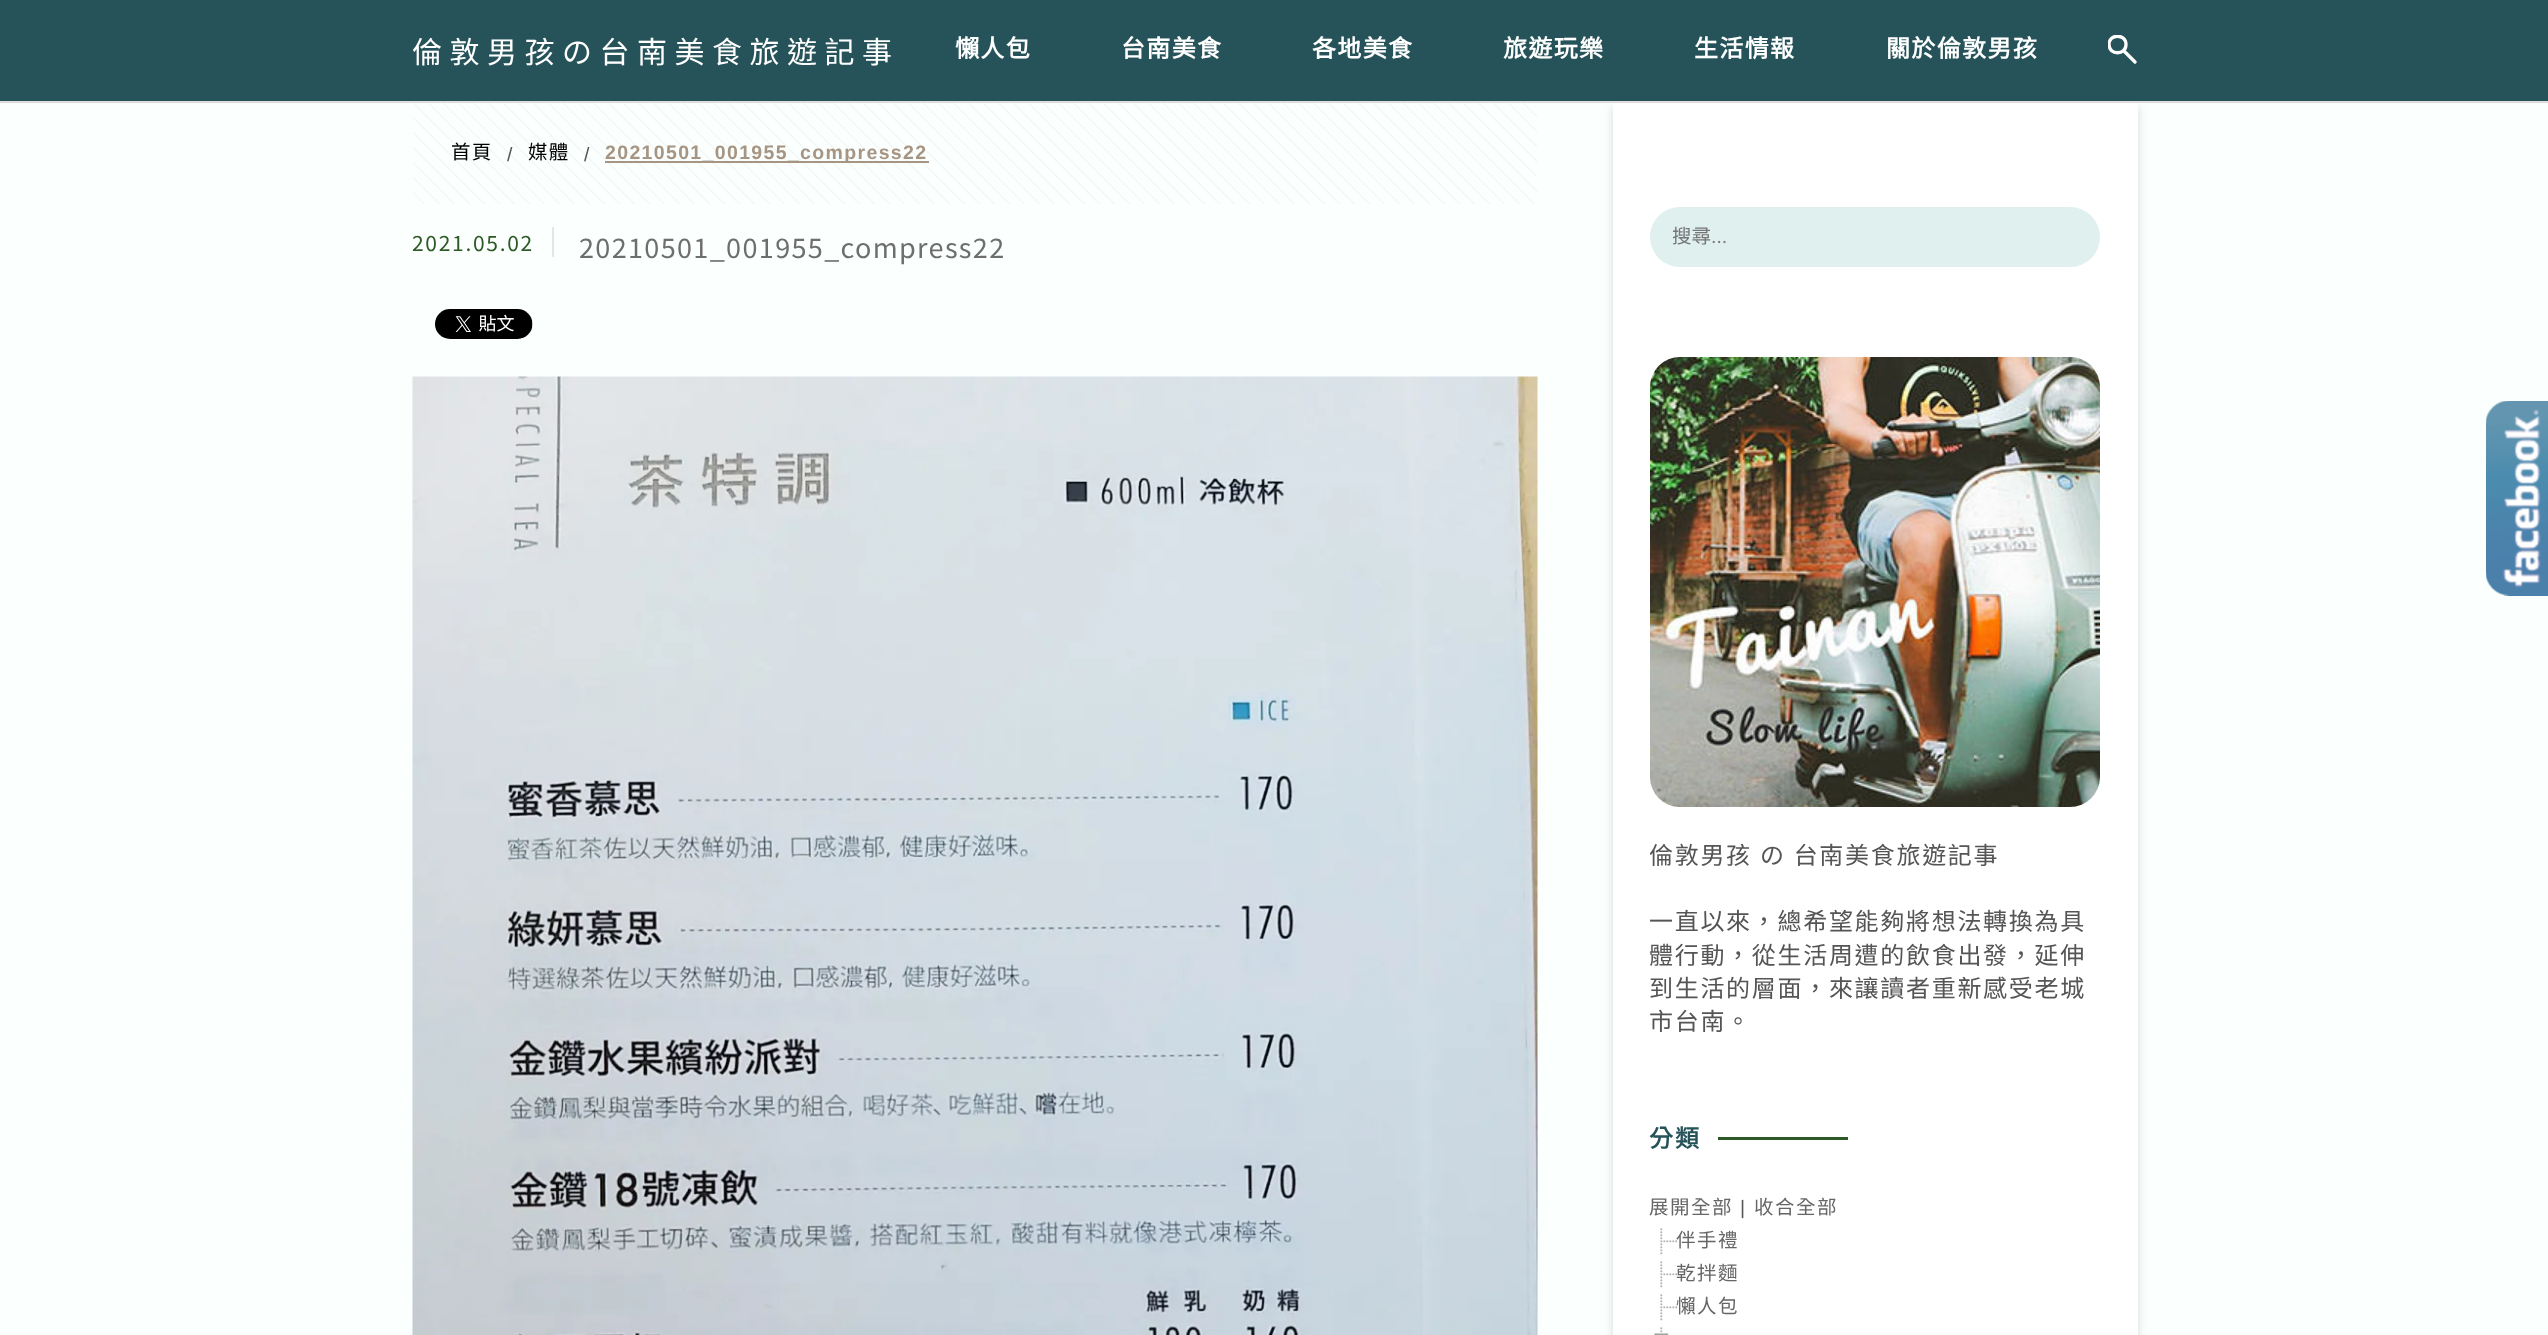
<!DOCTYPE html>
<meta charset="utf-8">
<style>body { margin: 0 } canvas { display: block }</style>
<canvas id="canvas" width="2548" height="1335"></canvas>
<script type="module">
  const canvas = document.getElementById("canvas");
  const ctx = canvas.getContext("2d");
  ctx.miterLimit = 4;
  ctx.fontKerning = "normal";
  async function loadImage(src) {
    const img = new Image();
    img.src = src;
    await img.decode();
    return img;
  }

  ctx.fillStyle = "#fbfffd";
  ctx.fillRect(0, 0, 2548, 1335);
  ctx.fillStyle = "rgba(0, 0, 0, 0.15)";
  ctx.filter = "blur(5px)";
  ctx.beginPath();
  ctx.rect(1613, 107, 525, 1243);
  ctx.fill();
  ctx.filter = "none";
  ctx.fillStyle = "#255359";
  ctx.fillRect(0, 0, 2548, 101);
  ctx.fillStyle = "#dddddd";
  ctx.fillRect(0, 101, 2548, 2);
  ctx.letterSpacing = "7.5px";
  ctx.font = "100 30px Noto Sans TC";
  ctx.fillStyle = "#ffffff";
  ctx.fillText("倫敦男孩の台南美食旅遊記事", 412, 63);
  ctx.letterSpacing = "1.35px";
  ctx.font = "bold 24px Noto Sans CJK TC";
  ctx.fillText("懶人包", 955, 57);
  ctx.fillText("台南美食", 1121, 57);
  ctx.fillText("各地美食", 1312, 57);
  ctx.fillText("旅遊玩樂", 1503, 57);
  ctx.fillText("生活情報", 1694, 57);
  ctx.fillText("關於倫敦男孩", 1886, 57);
  ctx.save();
  ctx.beginPath();
  ctx.rect(2108, 35, 30, 30);
  ctx.clip();
  ctx.beginPath();
  ctx.moveTo(2124, 51);
  ctx.lineTo(2135, 62);
  ctx.moveTo(2126, 44.5);
  ctx.bezierCurveTo(2126, 55.5, 2109, 55.5, 2109, 44.5);
  ctx.bezierCurveTo(2109, 33.5, 2126, 33.5, 2126, 44.5);
  ctx.closePath();
  ctx.strokeStyle = "#ffffff";
  ctx.lineWidth = 3.3;
  ctx.lineCap = "round";
  ctx.stroke();
  ctx.restore();
  ctx.drawImage(await loadImage("img1.png"), 413, 103, 1124, 101);
  ctx.font = "19.5px Noto Sans CJK TC";
  ctx.fillStyle = "#000000";
  ctx.fillText("首頁", 451, 159);
  ctx.font = "19.5px Liberation Sans";
  ctx.fillStyle = "#555555";
  ctx.fillText("/", 507, 161);
  ctx.font = "19.5px Noto Sans CJK TC";
  ctx.fillStyle = "#000000";
  ctx.fillText("媒體", 528, 159);
  ctx.font = "19.5px Liberation Sans";
  ctx.fillStyle = "#555555";
  ctx.fillText("/", 584, 161);
  ctx.fillStyle = "#a69583";
  ctx.fillRect(605, 161, 324, 2);
  ctx.font = "bold 19.5px Liberation Sans";
  ctx.fillText("20210501_001955_compress22", 605, 159);
  ctx.fillStyle = "#e3e5e6";
  ctx.fillRect(552, 227, 2, 30);
  ctx.letterSpacing = "1.7px";
  ctx.font = "100 21px Noto Sans TC";
  ctx.fillStyle = "#2c5925";
  ctx.fillText("2021.05.02", 412, 251);
  ctx.letterSpacing = "1.35px";
  ctx.font = "100 27px Noto Sans TC";
  ctx.fillStyle = "#6f6e6e";
  ctx.fillText("20210501_001955_compress22", 579, 258);
  ctx.drawImage(await loadImage("img2.png"), 435, 309, 98, 30);
  ctx.drawImage(await loadImage("img3.png"), 412, 376, 1126, 959);
  ctx.fillStyle = "#ffffff";
  ctx.fillRect(1613, 103, 525, 1232);
  ctx.fillStyle = "#dff0ef";
  ctx.beginPath();
  ctx.roundRect(1650, 207, 450, 60, 30);
  ctx.fill();
  ctx.save();
  ctx.beginPath();
  ctx.rect(1673, 221, 385, 28);
  ctx.clip();
  ctx.letterSpacing = "0px";
  ctx.font = "19.5px Noto Sans CJK TC";
  ctx.fillStyle = "#757575";
  ctx.fillText("搜尋", 1672, 243);
  ctx.restore();
  ctx.letterSpacing = "0px";
  ctx.font = "19.5px Liberation Sans";
  ctx.fillStyle = "#757575";
  ctx.fillText("...", 1711, 243);
  ctx.drawImage(await loadImage("img4.png"), 1650, 357, 450, 450);
  ctx.letterSpacing = "1.7px";
  ctx.wordSpacing = "1px";
  ctx.font = "24px Noto Sans CJK TC";
  ctx.fillStyle = "#555555";
  ctx.fillText("倫敦男孩 の 台南美食旅遊記事", 1649, 864);
  ctx.wordSpacing = "0px";
  ctx.fillText("一直以來，總希望能夠將想法轉換為具", 1649, 930);
  ctx.fillText("體行動，從生活周遭的飲食出發，延伸", 1649, 964);
  ctx.fillText("到生活的層面，來讓讀者重新感受老城", 1649, 997);
  ctx.fillText("市台南。", 1649, 1030);
  ctx.letterSpacing = "2px";
  ctx.font = "bold 24px Noto Sans TC";
  ctx.fillStyle = "#255359";
  ctx.fillText("分類", 1649, 1147);
  ctx.fillStyle = "#2c5925";
  ctx.fillRect(1718, 1137, 130, 3);
  ctx.letterSpacing = "1.5px";
  ctx.font = "19.5px Noto Sans CJK TC";
  ctx.fillStyle = "#666666";
  ctx.fillText("展開全部", 1649, 1214);
  ctx.font = "19.5px Liberation Sans";
  ctx.fillStyle = "#555555";
  ctx.fillText("|", 1740, 1214);
  ctx.font = "19.5px Noto Sans CJK TC";
  ctx.fillStyle = "#666666";
  ctx.fillText("收合全部", 1754, 1214);
  ctx.drawImage(await loadImage("img5.png"), 1660, 1228, 17, 27);
  ctx.fillText("伴手禮", 1676, 1247);
  ctx.drawImage(await loadImage("img5.png"), 1660, 1261, 17, 27);
  ctx.fillText("乾拌麵", 1676, 1280);
  ctx.drawImage(await loadImage("img5.png"), 1660, 1294, 17, 27);
  ctx.fillText("懶人包", 1676, 1313);
  ctx.drawImage(await loadImage("img6.png"), 1654, 1327, 15, 8);
  ctx.drawImage(await loadImage("img7.png"), 2486, 401, 62, 195);
</script>
